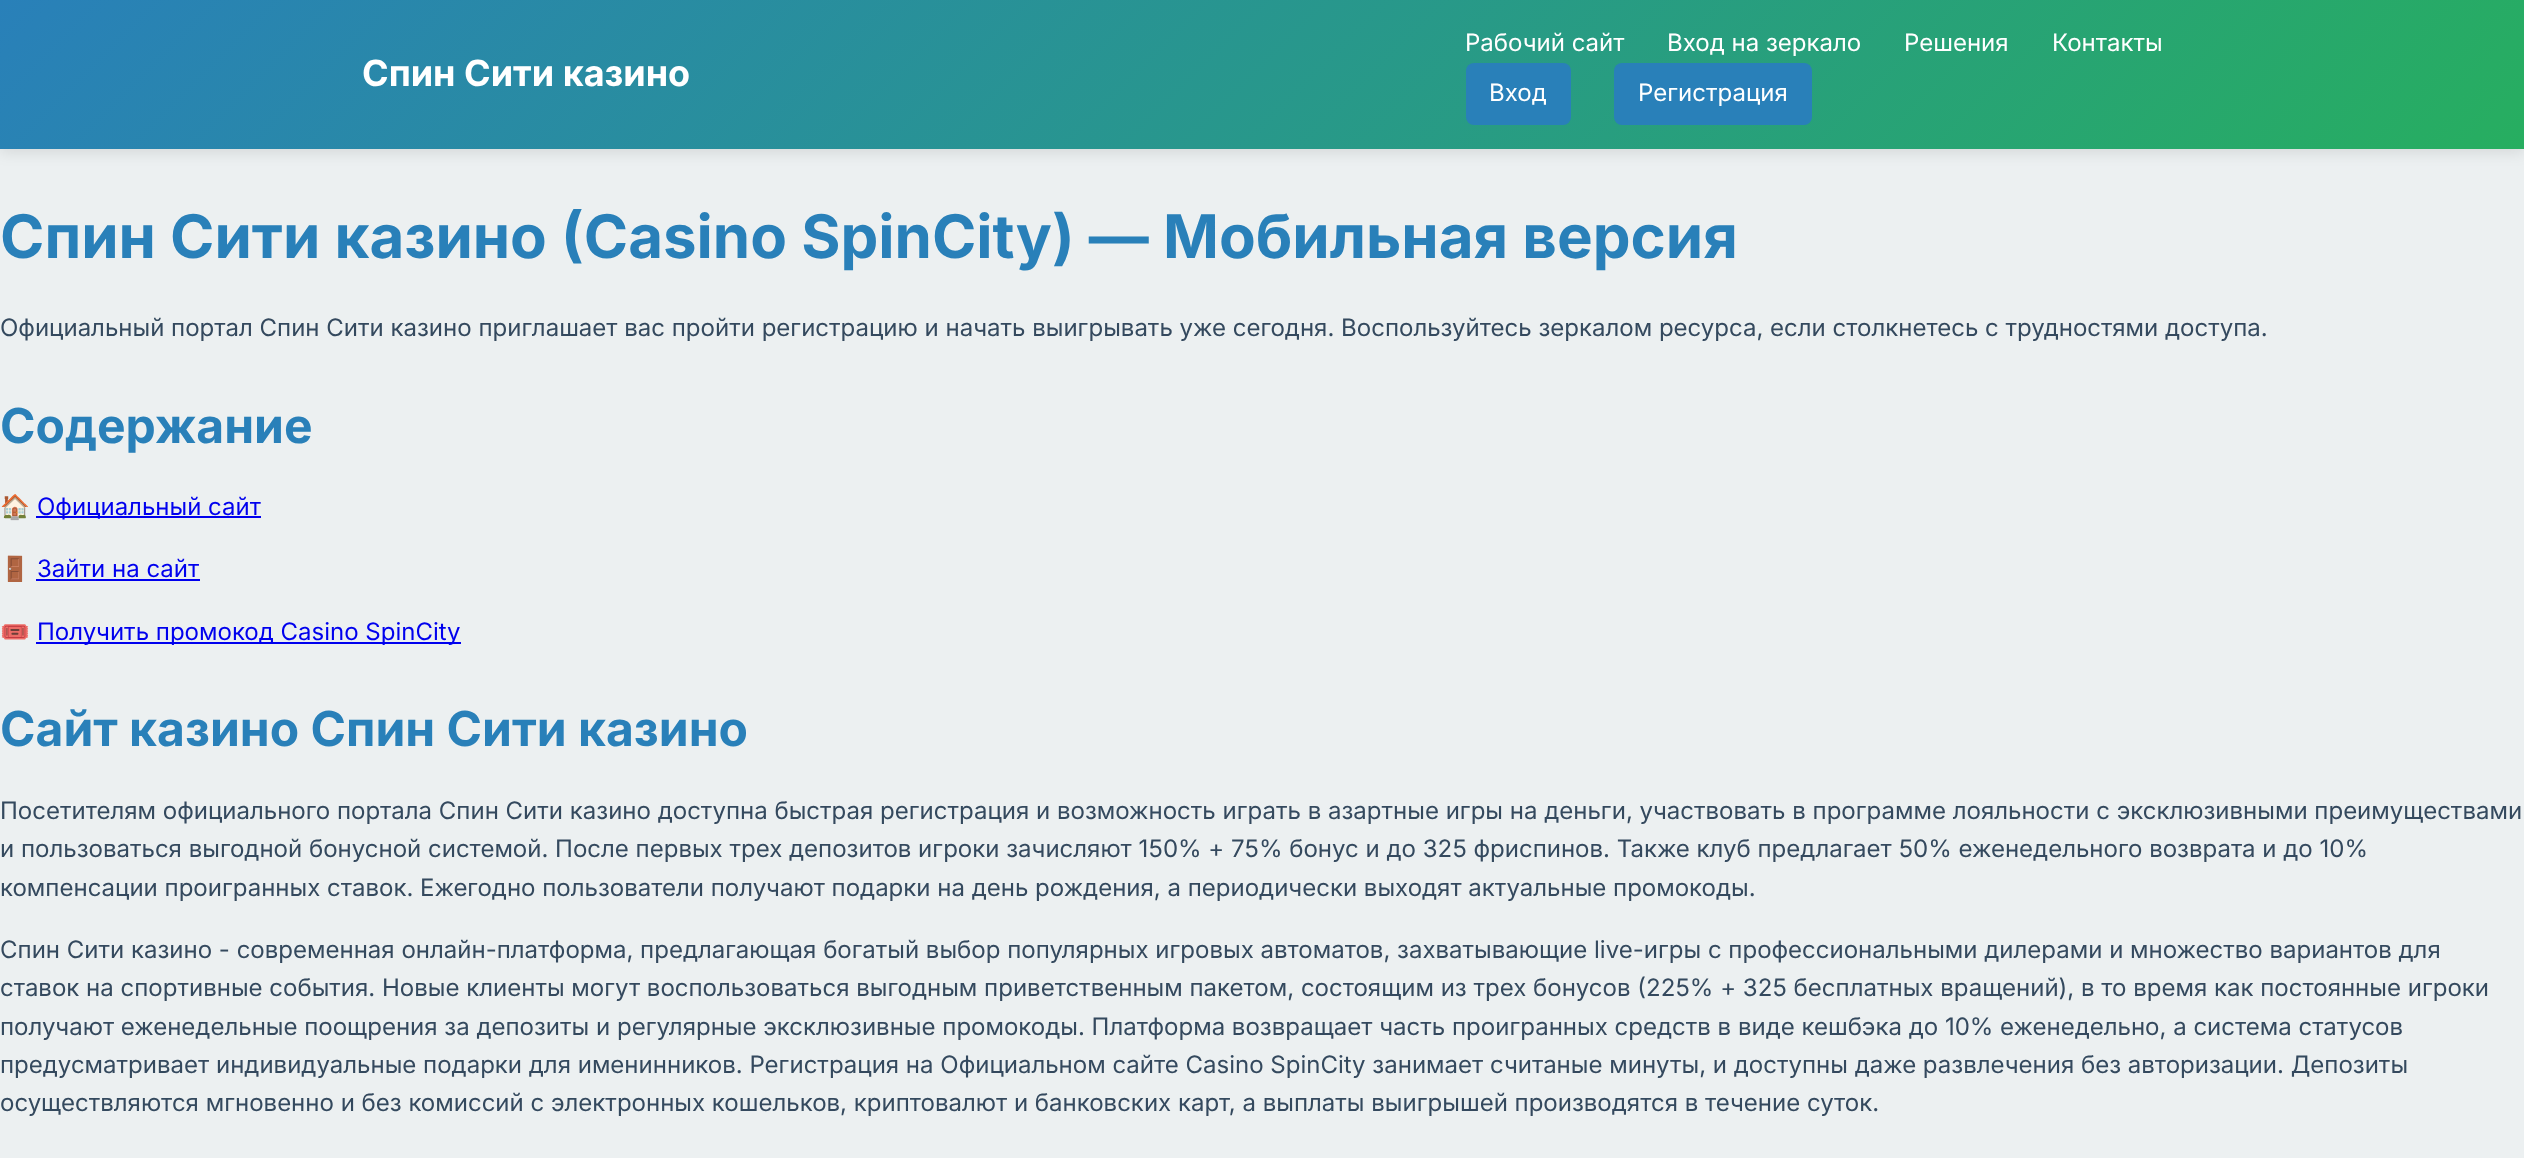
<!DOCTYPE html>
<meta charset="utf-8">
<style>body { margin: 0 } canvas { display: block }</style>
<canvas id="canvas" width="2524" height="1158"></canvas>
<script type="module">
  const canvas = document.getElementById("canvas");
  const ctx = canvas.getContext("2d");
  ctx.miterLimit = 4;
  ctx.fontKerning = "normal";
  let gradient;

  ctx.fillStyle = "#ecf0f1";
  ctx.fillRect(0, 0, 2524, 1158);
  ctx.fillStyle = "rgba(0, 0, 0, 0.1)";
  ctx.filter = "blur(7.5px)";
  ctx.beginPath();
  ctx.rect(0, 3, 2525, 149);
  ctx.fill();
  ctx.filter = "none";
  gradient = ctx.createLinearGradient(594, -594, 1931, 743);
  gradient.addColorStop(0, "#2980b9");
  gradient.addColorStop(1, "#27ae60");
  ctx.fillStyle = gradient;
  ctx.fillRect(0, 0, 2524, 149);
  ctx.font = "bold 36px Inter";
  ctx.fillStyle = "#ffffff";
  ctx.fillText("Спин Сити казино", 362, 86);
  ctx.font = "24px Inter";
  ctx.fillText("Рабочий сайт", 1465, 51);
  ctx.fillText("Вход на зеркало", 1667, 51);
  ctx.fillText("Решения", 1904, 51);
  ctx.fillText("Контакты", 2052, 51);
  ctx.fillStyle = "#2980b9";
  ctx.beginPath();
  ctx.roundRect(1466, 63, 105, 62, 8);
  ctx.fill();
  ctx.fillStyle = "#ffffff";
  ctx.fillText("Вход", 1489, 101);
  ctx.fillStyle = "#2980b9";
  ctx.beginPath();
  ctx.roundRect(1614, 63, 198, 62, 8);
  ctx.fill();
  ctx.fillStyle = "#ffffff";
  ctx.fillText("Регистрация", 1638, 101);
  ctx.font = "bold 60px Inter";
  ctx.fillStyle = "#2980b9";
  ctx.fillText("Спин Сити казино (Casino SpinCity) — Мобильная версия", 0, 258);
  ctx.font = "24px Inter";
  ctx.fillStyle = "#34495e";
  ctx.fillText("Официальный портал Спин Сити казино приглашает вас пройти регистрацию и начать выигрывать уже сегодня. Воспользуйтесь зеркалом ресурса, если столкнетесь с трудностями доступа.", 0, 336);
  ctx.font = "bold 48px Inter";
  ctx.fillStyle = "#2980b9";
  ctx.fillText("Содержание", 0, 443);
  ctx.font = "24px Noto Color Emoji";
  ctx.fillStyle = "#34495e";
  ctx.fillText("🏠", 0, 515);
  ctx.fillStyle = "#0000ee";
  ctx.fillRect(36, 516, 225, 2);
  ctx.font = "24px Inter";
  ctx.fillText("Официальный сайт", 37, 515);
  ctx.font = "24px Noto Color Emoji";
  ctx.fillStyle = "#34495e";
  ctx.fillText("🚪", 0, 577);
  ctx.font = "24px Inter";
  ctx.fillStyle = "#0000ee";
  ctx.fillText("Зайти на сайт", 37, 577);
  ctx.fillRect(36, 579, 164, 2);
  ctx.font = "24px Noto Color Emoji";
  ctx.fillStyle = "#34495e";
  ctx.fillText("🎟️", 0, 640);
  ctx.fillStyle = "#0000ee";
  ctx.fillRect(36, 642, 425, 2);
  ctx.font = "24px Inter";
  ctx.fillText("Получить промокод Casino SpinCity", 37, 640);
  ctx.font = "bold 48px Inter";
  ctx.fillStyle = "#2980b9";
  ctx.fillText("Сайт казино Спин Сити казино", 0, 746);
  ctx.font = "24px Inter";
  ctx.fillStyle = "#34495e";
  ctx.fillText("Посетителям официального портала Спин Сити казино доступна быстрая регистрация и возможность играть в азартные игры на деньги, участвовать в программе лояльности с эксклюзивными преимуществами", 0, 819);
  ctx.fillText("и пользоваться выгодной бонусной системой. После первых трех депозитов игроки зачисляют 150% + 75% бонус и до 325 фриспинов. Также клуб предлагает 50% еженедельного возврата и до 10%", 0, 857);
  ctx.fillText("компенсации проигранных ставок. Ежегодно пользователи получают подарки на день рождения, а периодически выходят актуальные промокоды.", 0, 896);
  ctx.fillText("Спин Сити казино - современная онлайн-платформа, предлагающая богатый выбор популярных игровых автоматов, захватывающие live-игры с профессиональными дилерами и множество вариантов для", 0, 958);
  ctx.fillText("ставок на спортивные события. Новые клиенты могут воспользоваться выгодным приветственным пакетом, состоящим из трех бонусов (225% + 325 бесплатных вращений), в то время как постоянные игроки", 0, 996);
  ctx.fillText("получают еженедельные поощрения за депозиты и регулярные эксклюзивные промокоды. Платформа возвращает часть проигранных средств в виде кешбэка до 10% еженедельно, а система статусов", 0, 1035);
  ctx.fillText("предусматривает индивидуальные подарки для именинников. Регистрация на Официальном сайте Casino SpinCity занимает считаные минуты, и доступны даже развлечения без авторизации. Депозиты", 0, 1073);
  ctx.fillText("осуществляются мгновенно и без комиссий с электронных кошельков, криптовалют и банковских карт, а выплаты выигрышей производятся в течение суток.", 0, 1111);
</script>
